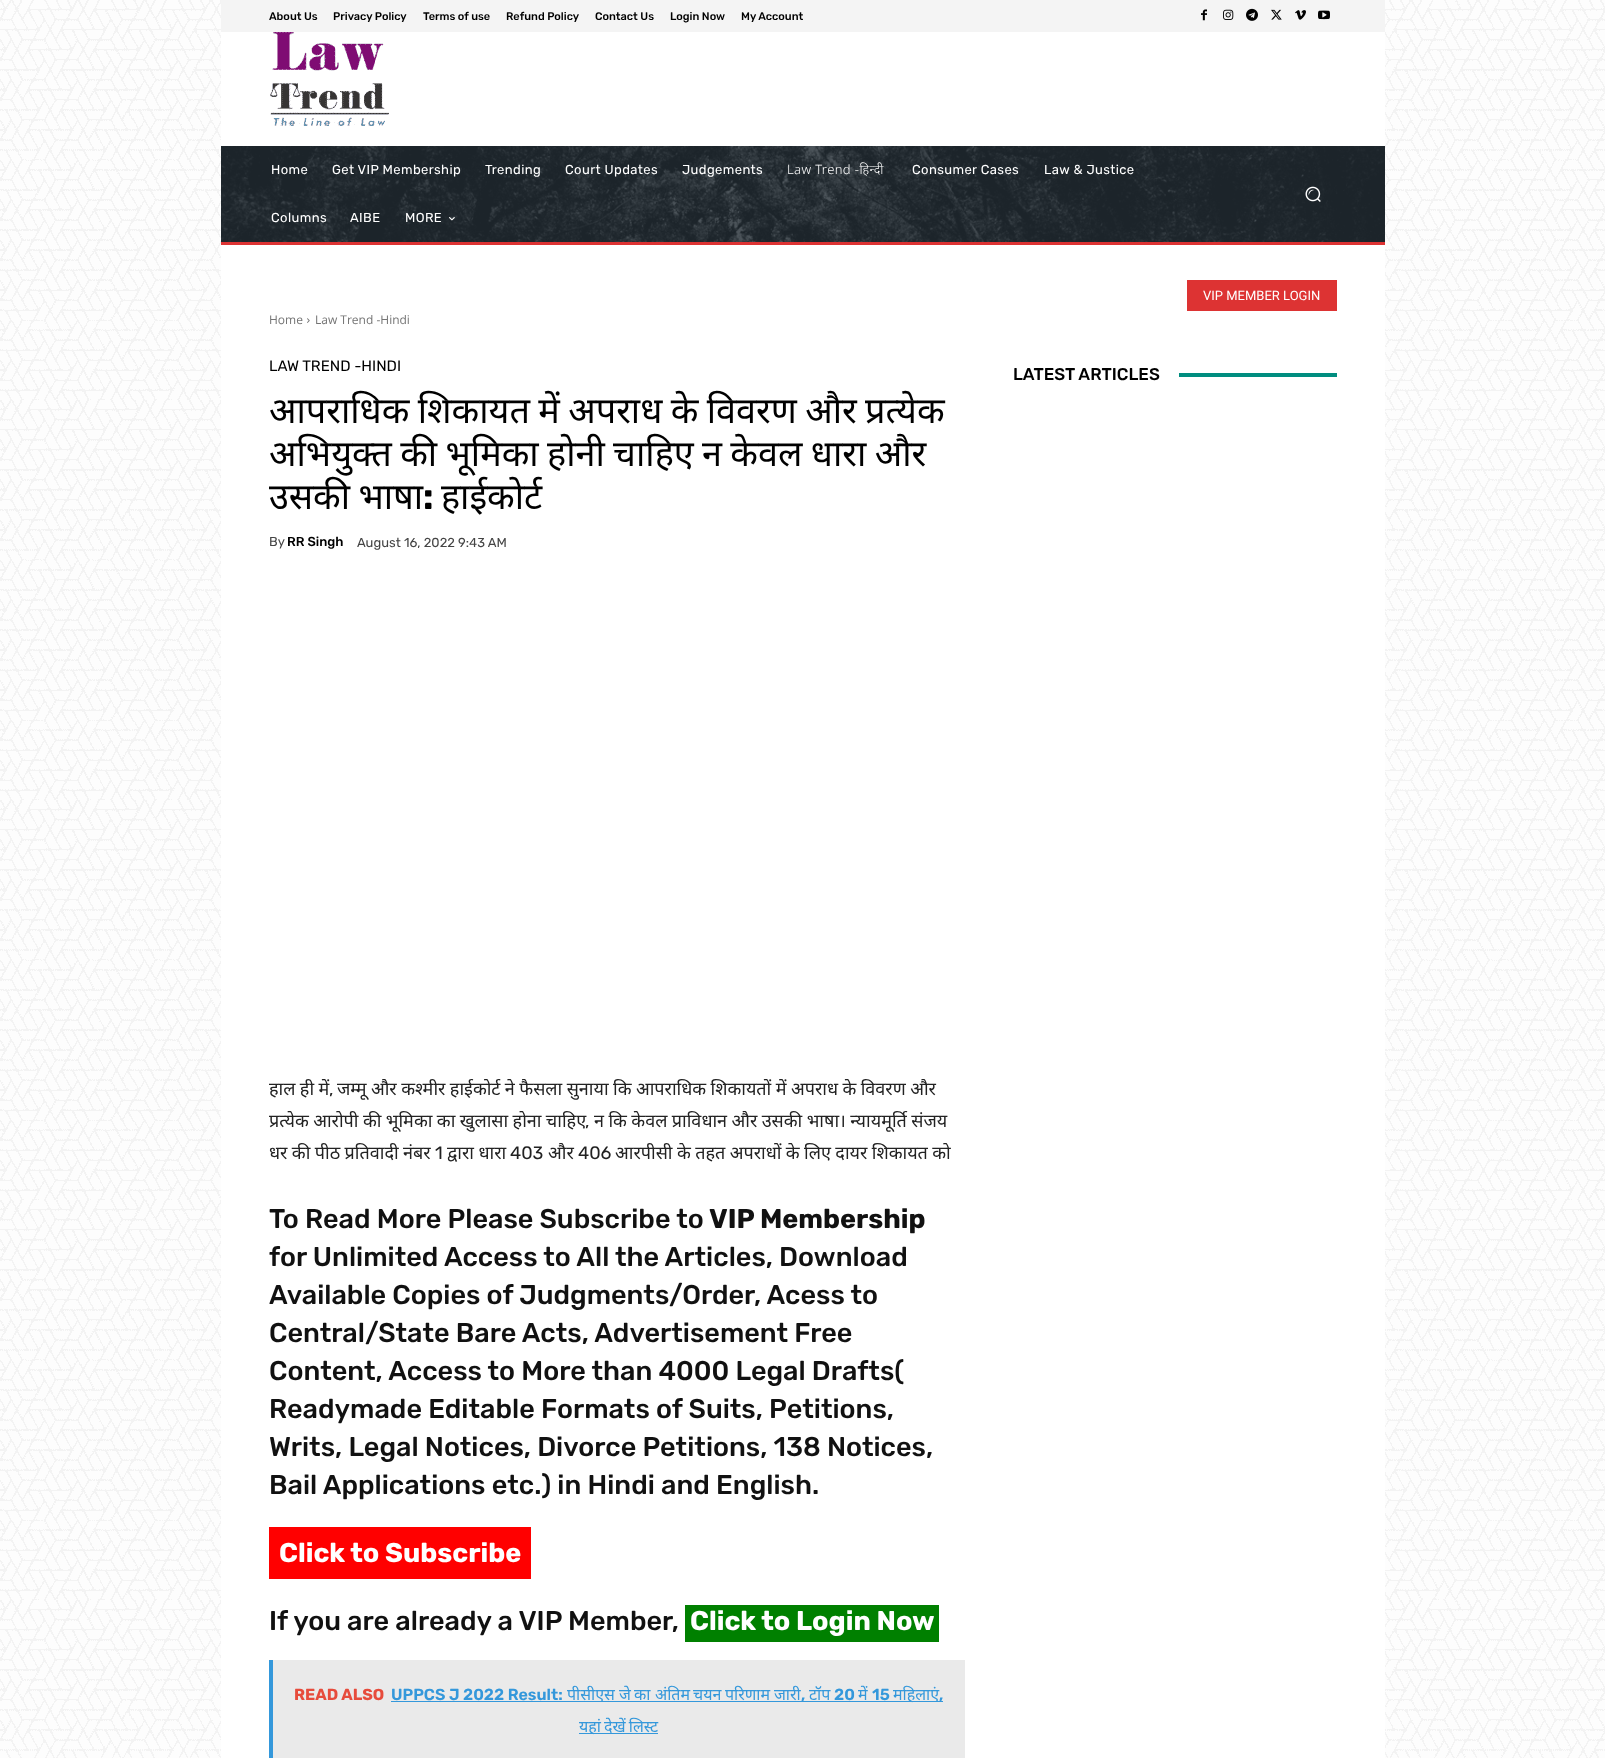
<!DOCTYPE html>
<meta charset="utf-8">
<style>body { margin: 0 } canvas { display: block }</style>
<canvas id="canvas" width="1605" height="1758"></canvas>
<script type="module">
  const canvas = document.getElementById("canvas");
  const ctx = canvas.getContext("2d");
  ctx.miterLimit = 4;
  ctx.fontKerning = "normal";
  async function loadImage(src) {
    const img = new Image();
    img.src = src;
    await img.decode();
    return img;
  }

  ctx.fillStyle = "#ffffff";
  ctx.fillRect(0, 0, 1605, 1758);
  ctx.drawImage(await loadImage("img1.png"), 0, 0, 1605, 1758);
  ctx.fillStyle = "#f4f4f4";
  ctx.fillRect(221, 0, 1164, 32);
  ctx.font = "500 11px Rubik";
  ctx.fillStyle = "#000000";
  ctx.fillText("About Us", 269, 20);
  ctx.fillText("Privacy Policy", 333, 20);
  ctx.fillText("Terms of use", 423, 20);
  ctx.fillText("Refund Policy", 506, 20);
  ctx.fillText("Contact Us", 595, 20);
  ctx.fillText("Login Now", 670, 20);
  ctx.fillText("My Account", 741, 20);
  ctx.drawImage(await loadImage("img2.png"), 1201, 9, 6, 12);
  ctx.drawImage(await loadImage("img3.png"), 1223, 9, 11, 11);
  ctx.drawImage(await loadImage("img4.png"), 1246, 8, 12, 13);
  ctx.drawImage(await loadImage("img5.png"), 1271, 9, 11, 11);
  ctx.drawImage(await loadImage("img6.png"), 1295, 10, 11, 10);
  ctx.drawImage(await loadImage("img7.png"), 1318, 10, 12, 10);
  ctx.fillStyle = "#ffffff";
  ctx.fillRect(221, 32, 1164, 1726);
  ctx.drawImage(await loadImage("img8.png"), 270, 32, 119, 94);
  ctx.fillStyle = "#232d35";
  ctx.fillRect(221, 146, 1164, 96);
  ctx.drawImage(await loadImage("img9.png"), 221, 146, 1164, 96);
  ctx.letterSpacing = "0.4px";
  ctx.font = "13px Rubik";
  ctx.fillStyle = "#ffffff";
  ctx.fillText("Home", 271, 174);
  ctx.fillText("Get VIP Membership", 332, 174);
  ctx.fillText("Trending", 485, 174);
  ctx.fillText("Court Updates", 565, 174);
  ctx.fillText("Judgements", 682, 174);
  ctx.font = "300 13px Noto Sans";
  ctx.fillText("Law Trend -हिन्दी", 787, 174);
  ctx.font = "13px Rubik";
  ctx.fillText("Consumer Cases", 912, 174);
  ctx.fillText("Law & Justice", 1044, 174);
  ctx.fillText("Columns", 271, 222);
  ctx.fillText("AIBE", 350, 222);
  ctx.fillText("MORE", 405, 222);
  ctx.drawImage(await loadImage("img10.png"), 449, 217, 6, 4);
  ctx.drawImage(await loadImage("img11.png"), 1305, 186, 16, 16);
  ctx.fillStyle = "#dd3333";
  ctx.fillRect(221, 242, 1164, 3);
  ctx.fillRect(1187, 280, 150, 31);
  ctx.letterSpacing = "0px";
  ctx.font = "13px Roboto";
  ctx.fillStyle = "#ffffff";
  ctx.fillText("VIP MEMBER LOGIN", 1203, 300);
  ctx.font = "12px Open Sans";
  ctx.fillStyle = "#747474";
  ctx.fillText("Home", 269, 324);
  ctx.drawImage(await loadImage("img12.png"), 307, 318, 3, 5);
  ctx.fillText("Law Trend -Hindi", 315, 324);
  ctx.font = "15px Rubik";
  ctx.fillStyle = "#000000";
  ctx.fillText("LAW TREND -HINDI", 269, 371);
  ctx.wordSpacing = "-1px";
  ctx.font = "36px Noto Sans";
  ctx.fillText("आपराधिक शिकायत में अपराध के विवरण और प्रत्येक", 269, 423);
  ctx.fillText("अभियुक्त की भूमिका होनी चाहिए न केवल धारा और", 269, 466);
  ctx.fillText("उसकी भाषा", 269, 509);
  ctx.wordSpacing = "0px";
  ctx.font = "bold 36px Rubik";
  ctx.fillText(":", 423, 509);
  ctx.font = "36px Noto Sans";
  ctx.fillText("हाईकोर्ट", 441, 509);
  ctx.font = "13px Rubik";
  ctx.fillStyle = "#444444";
  ctx.fillText("By", 269, 546);
  ctx.font = "500 13px Rubik";
  ctx.fillStyle = "#000000";
  ctx.fillText("RR Singh", 287, 546);
  ctx.font = "13px Rubik";
  ctx.fillStyle = "#444444";
  ctx.fillText("August 16, 2022 9:43 AM", 357, 547);
  ctx.wordSpacing = "-0.25px";
  ctx.font = "18px Noto Sans";
  ctx.fillStyle = "#222222";
  ctx.fillText("हाल ही में", 269, 1095);
  ctx.wordSpacing = "0px";
  ctx.font = "18px Rubik";
  ctx.fillText(",", 329, 1095);
  ctx.wordSpacing = "-0.25px";
  ctx.font = "18px Noto Sans";
  ctx.fillText("जम्मू और कश्मीर हाईकोर्ट ने फैसला सुनाया कि आपराधिक शिकायतों में अपराध के विवरण और", 337, 1095);
  ctx.fillText("प्रत्येक आरोपी की भूमिका का खुलासा होना चाहिए", 269, 1127);
  ctx.wordSpacing = "0px";
  ctx.font = "18px Rubik";
  ctx.fillText(",", 585, 1127);
  ctx.wordSpacing = "-0.25px";
  ctx.font = "18px Noto Sans";
  ctx.fillText("न कि केवल प्राविधान और उसकी भाषा। न्यायमूर्ति संजय", 594, 1127);
  ctx.fillText("धर की पीठ प्रतिवादी नंबर", 269, 1159);
  ctx.wordSpacing = "0px";
  ctx.font = "18px Rubik";
  ctx.fillText("1", 435, 1159);
  ctx.wordSpacing = "-0.25px";
  ctx.font = "18px Noto Sans";
  ctx.fillText("द्वारा धारा", 447, 1159);
  ctx.wordSpacing = "0px";
  ctx.font = "18px Rubik";
  ctx.fillText("403", 510, 1159);
  ctx.font = "18px Noto Sans";
  ctx.fillText("और", 548, 1159);
  ctx.font = "18px Rubik";
  ctx.fillText("406", 578, 1159);
  ctx.wordSpacing = "-0.25px";
  ctx.font = "18px Noto Sans";
  ctx.fillText("आरपीसी के तहत अपराधों के लिए दायर शिकायत को", 615, 1159);
  ctx.wordSpacing = "0px";
  ctx.font = "500 27px Rubik";
  ctx.fillStyle = "#111111";
  ctx.fillText("To Read More Please Subscribe to", 269, 1228);
  ctx.font = "bold 27px Rubik";
  ctx.fillText("VIP Membership", 709, 1228);
  ctx.font = "500 27px Rubik";
  ctx.fillText("for Unlimited Access to All the Articles, Download", 269, 1266);
  ctx.fillText("Available Copies of Judgments/Order, Acess to", 269, 1304);
  ctx.fillText("Central/State Bare Acts, Advertisement Free", 269, 1342);
  ctx.fillText("Content, Access to More than 4000 Legal Drafts(", 269, 1380);
  ctx.fillText("Readymade Editable Formats of Suits, Petitions,", 269, 1418);
  ctx.fillText("Writs, Legal Notices, Divorce Petitions, 138 Notices,", 269, 1456);
  ctx.fillText("Bail Applications etc.) in Hindi and English.", 269, 1494);
  ctx.fillStyle = "#ff0000";
  ctx.fillRect(269, 1527, 262, 52);
  ctx.font = "bold 27px Rubik";
  ctx.fillStyle = "#ffffff";
  ctx.fillText("Click to Subscribe", 279, 1562);
  ctx.font = "500 27px Rubik";
  ctx.fillStyle = "#111111";
  ctx.fillText("If you are already a VIP Member,", 269, 1630);
  ctx.fillStyle = "#008000";
  ctx.fillRect(685, 1605, 254, 37);
  ctx.font = "bold 27px Rubik";
  ctx.fillStyle = "#ffffff";
  ctx.fillText("Click to Login Now", 690, 1630);
  ctx.fillStyle = "#eaeaea";
  ctx.fillRect(273, 1660, 692, 98);
  ctx.fillStyle = "#3498db";
  ctx.fillRect(269, 1660, 4, 98);
  ctx.font = "bold 16px Rubik";
  ctx.fillStyle = "#e74c3c";
  ctx.fillText("READ ALSO", 294, 1700);
  ctx.font = "600 16px Rubik";
  ctx.fillStyle = "#3498db";
  ctx.fillText("UPPCS J 2022 Result:", 391, 1700);
  ctx.fillRect(391, 1701, 552, 1);
  ctx.font = "16px Noto Sans";
  ctx.fillText("पीसीएस", 567, 1700);
  ctx.fillText("जे", 619, 1700);
  ctx.fillText("का", 634, 1700);
  ctx.fillText("अंतिम", 655, 1700);
  ctx.fillText("चयन", 693, 1700);
  ctx.fillText("परिणाम", 725, 1700);
  ctx.fillText("जारी", 774, 1700);
  ctx.font = "600 16px Rubik";
  ctx.fillText(",", 801, 1700);
  ctx.font = "16px Noto Sans";
  ctx.fillText("टॉप", 809, 1700);
  ctx.font = "600 16px Rubik";
  ctx.fillText("20", 834, 1700);
  ctx.font = "16px Noto Sans";
  ctx.fillText("में", 858, 1700);
  ctx.font = "600 16px Rubik";
  ctx.fillText("15", 872, 1700);
  ctx.font = "16px Noto Sans";
  ctx.fillText("महिलाएं", 893, 1700);
  ctx.font = "600 16px Rubik";
  ctx.fillText(",", 939, 1700);
  ctx.fillRect(579, 1733, 79, 1);
  ctx.wordSpacing = "-1px";
  ctx.font = "16px Noto Sans";
  ctx.fillText("यहां देखें लिस्ट", 579, 1732);
  ctx.wordSpacing = "0px";
  ctx.font = "500 17px Rubik";
  ctx.fillStyle = "#000000";
  ctx.fillText("LATEST ARTICLES", 1013, 380);
  ctx.fillStyle = "#008d7f";
  ctx.fillRect(1179, 373, 158, 4);
</script>
